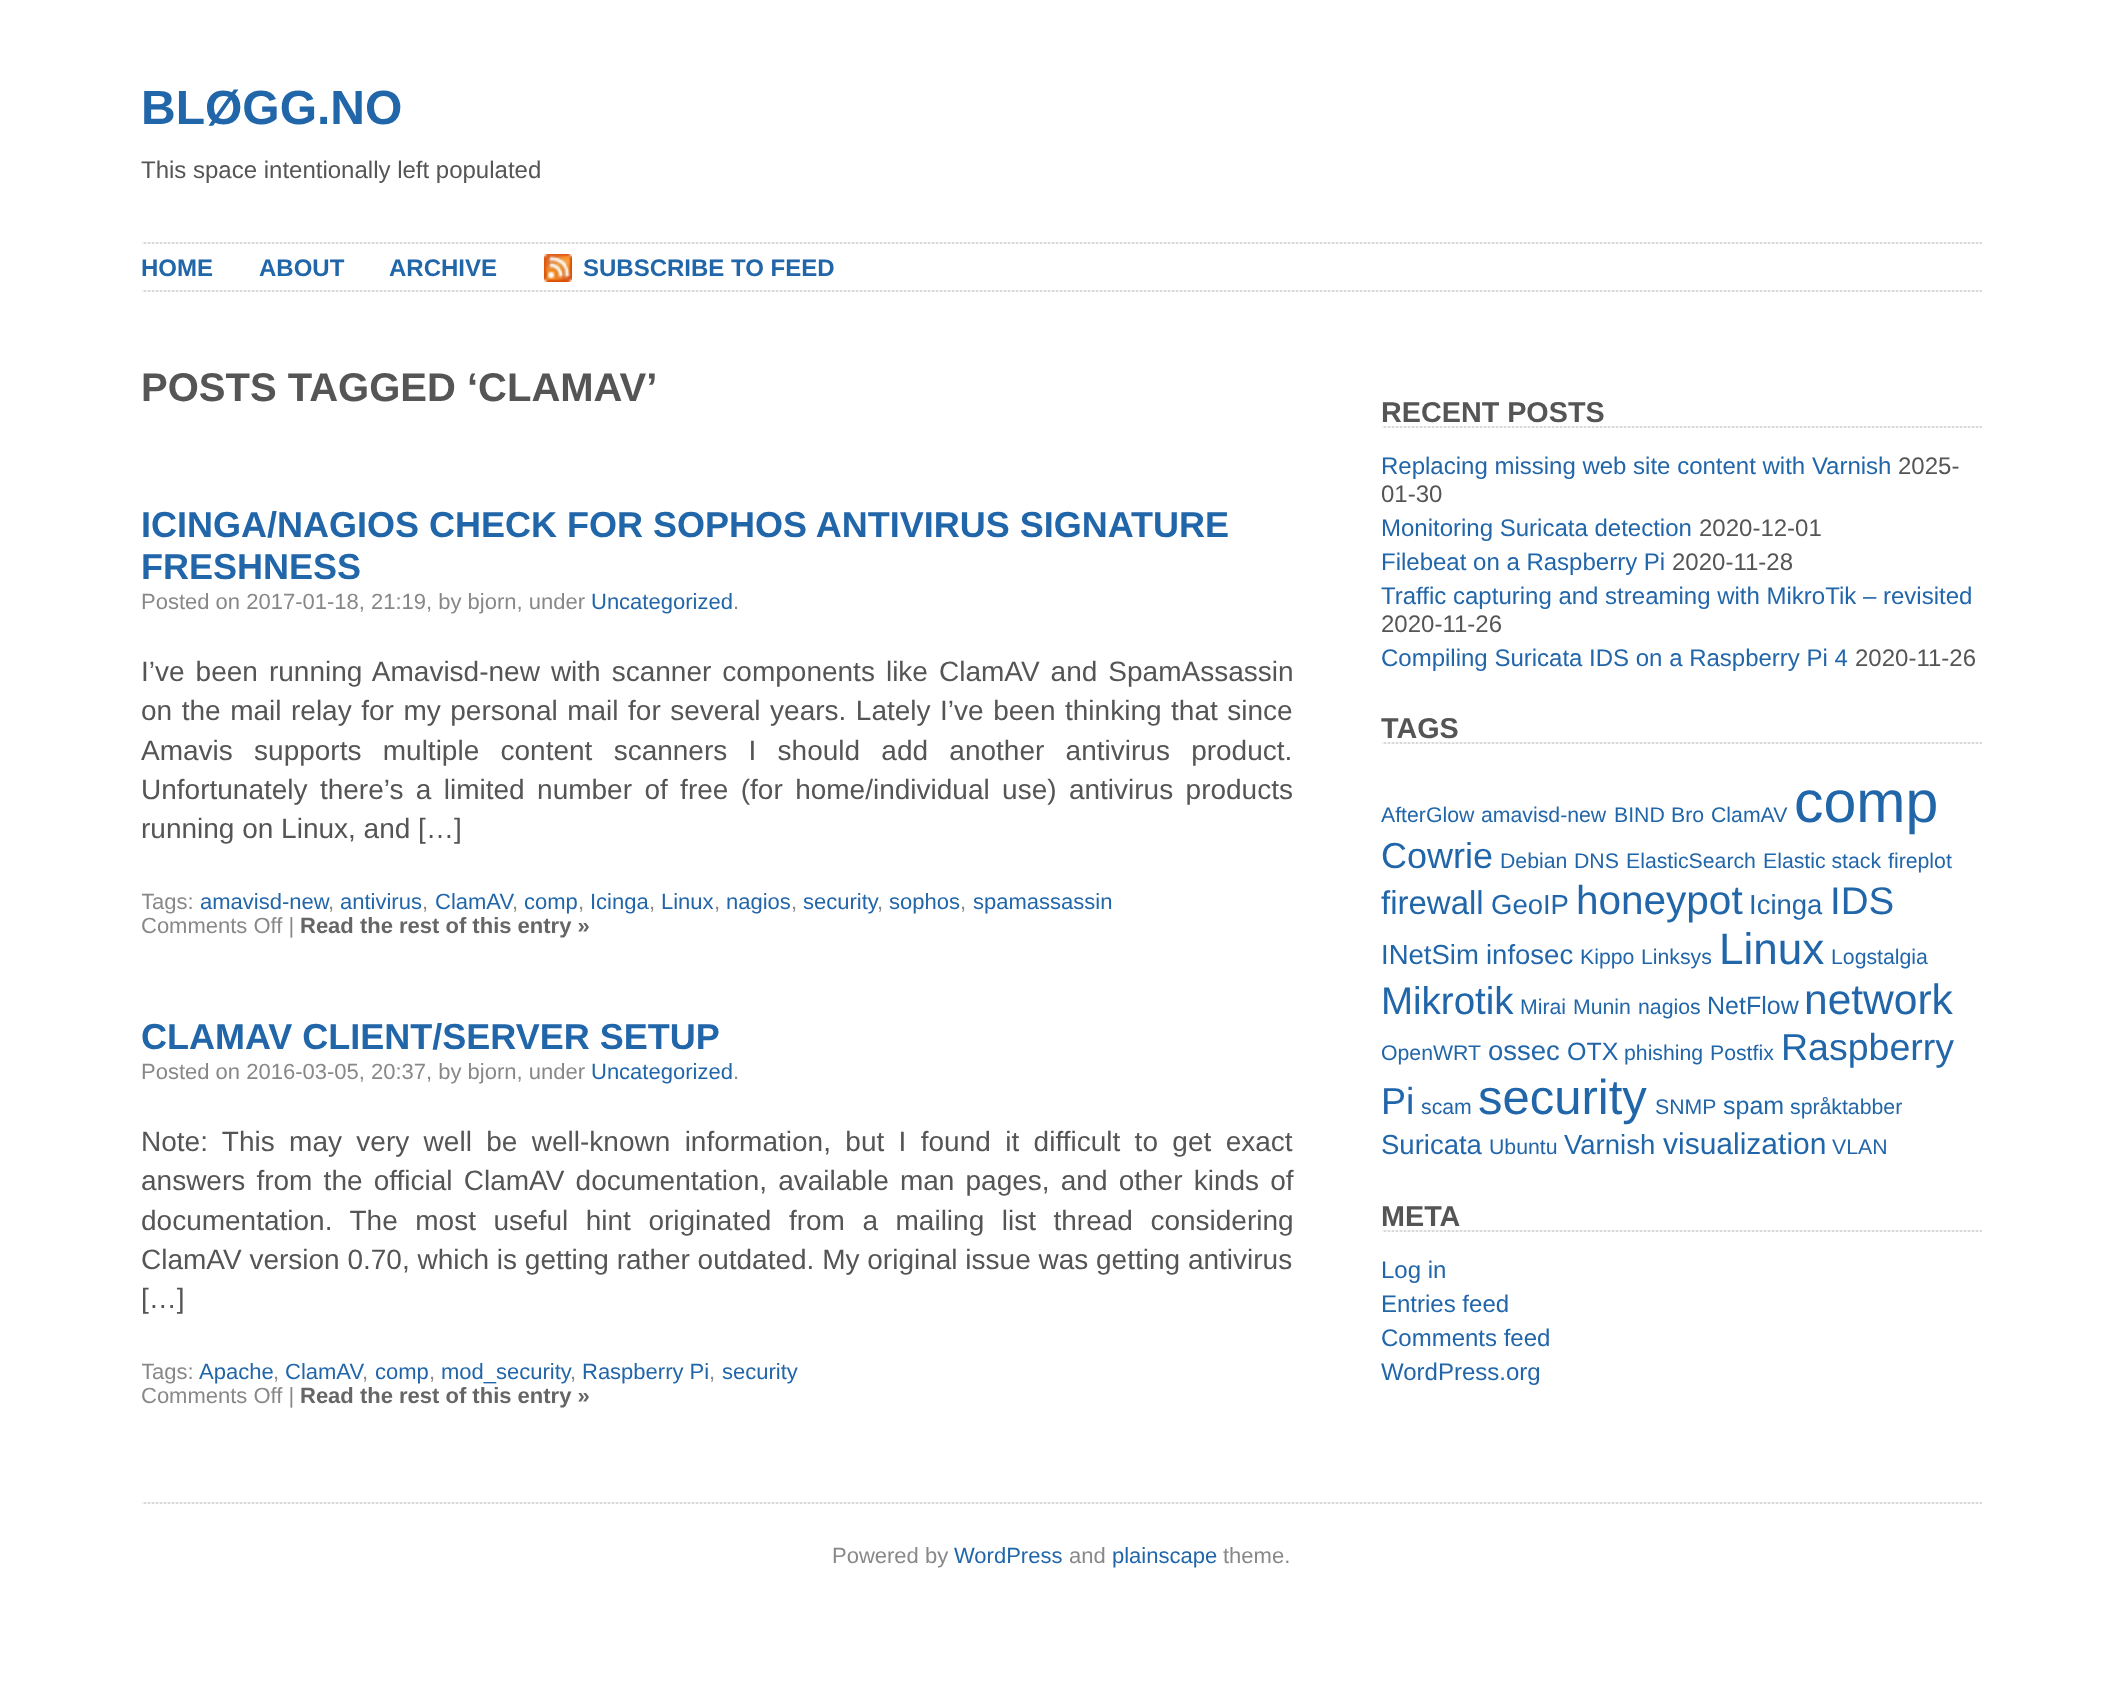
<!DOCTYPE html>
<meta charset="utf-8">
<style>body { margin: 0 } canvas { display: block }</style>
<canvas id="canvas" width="2122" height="1699"></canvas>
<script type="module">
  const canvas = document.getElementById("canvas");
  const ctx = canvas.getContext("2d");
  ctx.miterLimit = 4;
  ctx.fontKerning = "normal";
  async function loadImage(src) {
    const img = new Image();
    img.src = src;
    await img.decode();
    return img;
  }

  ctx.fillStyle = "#ffffff";
  ctx.fillRect(0, 0, 2122, 1699);
  ctx.drawImage(await loadImage("img1.png"), 142, 242, 1840, 2);
  ctx.font = "bold 48px Liberation Sans";
  ctx.fillStyle = "#2266aa";
  ctx.fillText("BLØGG.NO", 141, 124);
  ctx.font = "24px Liberation Sans";
  ctx.fillStyle = "#555555";
  ctx.fillText("This space intentionally left populated", 141, 178);
  ctx.drawImage(await loadImage("img1.png"), 142, 290, 1840, 2);
  ctx.font = "bold 24px Liberation Sans";
  ctx.fillStyle = "#2266aa";
  ctx.fillText("HOME", 141, 276);
  ctx.fillText("ABOUT", 259, 276);
  ctx.fillText("ARCHIVE", 389, 276);
  ctx.drawImage(await loadImage("img2.png"), 544, 254, 28, 28);
  ctx.fillText("SUBSCRIBE TO FEED", 583, 276);
  ctx.font = "bold 40px Liberation Sans";
  ctx.fillStyle = "#555555";
  ctx.fillText("POSTS TAGGED ‘CLAMAV’", 141, 401);
  ctx.font = "bold 36px Liberation Sans";
  ctx.fillStyle = "#2266aa";
  ctx.fillText("ICINGA/NAGIOS CHECK FOR SOPHOS ANTIVIRUS SIGNATURE", 141, 537);
  ctx.fillText("FRESHNESS", 141, 579);
  ctx.font = "22px Liberation Sans";
  ctx.fillStyle = "#888888";
  ctx.fillText("Posted on 2017-01-18, 21:19, by bjorn, under", 141, 609);
  ctx.fillStyle = "#2266aa";
  ctx.fillText("Uncategorized", 591, 609);
  ctx.fillStyle = "#888888";
  ctx.fillText(".", 733, 609);
  ctx.wordSpacing = "3.25px";
  ctx.font = "28px Liberation Sans";
  ctx.fillStyle = "#555555";
  ctx.fillText("I’ve been running Amavisd-new with scanner components like ClamAV and SpamAssassin", 141, 681);
  ctx.wordSpacing = "1.75px";
  ctx.fillText("on the mail relay for my personal mail for several years. Lately I’ve been thinking that since", 141, 720);
  ctx.wordSpacing = "13.5px";
  ctx.fillText("Amavis supports multiple content scanners I should add another antivirus product.", 141, 760);
  ctx.wordSpacing = "4.6px";
  ctx.fillText("Unfortunately there’s a limited number of free (for home/individual use) antivirus products", 141, 799);
  ctx.wordSpacing = "0px";
  ctx.fillText("running on Linux, and […]", 141, 838);
  ctx.save();
  ctx.beginPath();
  ctx.rect(142, 466, 1152, 512);
  ctx.clip();
  ctx.font = "22px Liberation Sans";
  ctx.fillStyle = "#888888";
  ctx.fillText("Tags:", 141, 909);
  ctx.restore();
  ctx.font = "22px Liberation Sans";
  ctx.fillStyle = "#2266aa";
  ctx.fillText("amavisd-new", 200, 909);
  ctx.fillStyle = "#888888";
  ctx.fillText(",", 328, 909);
  ctx.fillStyle = "#2266aa";
  ctx.fillText("antivirus", 340, 909);
  ctx.fillStyle = "#888888";
  ctx.fillText(",", 422, 909);
  ctx.fillStyle = "#2266aa";
  ctx.fillText("ClamAV", 435, 909);
  ctx.fillStyle = "#888888";
  ctx.fillText(",", 512, 909);
  ctx.fillStyle = "#2266aa";
  ctx.fillText("comp", 524, 909);
  ctx.fillStyle = "#888888";
  ctx.fillText(",", 578, 909);
  ctx.fillStyle = "#2266aa";
  ctx.fillText("Icinga", 590, 909);
  ctx.fillStyle = "#888888";
  ctx.fillText(",", 649, 909);
  ctx.fillStyle = "#2266aa";
  ctx.fillText("Linux", 661, 909);
  ctx.fillStyle = "#888888";
  ctx.fillText(",", 714, 909);
  ctx.fillStyle = "#2266aa";
  ctx.fillText("nagios", 726, 909);
  ctx.fillStyle = "#888888";
  ctx.fillText(",", 791, 909);
  ctx.fillStyle = "#2266aa";
  ctx.fillText("security", 803, 909);
  ctx.fillStyle = "#888888";
  ctx.fillText(",", 877, 909);
  ctx.fillStyle = "#2266aa";
  ctx.fillText("sophos", 889, 909);
  ctx.fillStyle = "#888888";
  ctx.fillText(",", 960, 909);
  ctx.fillStyle = "#2266aa";
  ctx.fillText("spamassassin", 973, 909);
  ctx.fillStyle = "#888888";
  ctx.fillText("Comments Off |", 141, 933);
  ctx.font = "bold 22px Liberation Sans";
  ctx.fillStyle = "#666666";
  ctx.fillText("Read the rest of this entry »", 300, 933);
  ctx.font = "bold 36px Liberation Sans";
  ctx.fillStyle = "#2266aa";
  ctx.fillText("CLAMAV CLIENT/SERVER SETUP", 141, 1049);
  ctx.font = "22px Liberation Sans";
  ctx.fillStyle = "#888888";
  ctx.fillText("Posted on 2016-03-05, 20:37, by bjorn, under", 141, 1079);
  ctx.fillStyle = "#2266aa";
  ctx.fillText("Uncategorized", 591, 1079);
  ctx.fillStyle = "#888888";
  ctx.fillText(".", 733, 1079);
  ctx.wordSpacing = "6.6px";
  ctx.font = "28px Liberation Sans";
  ctx.fillStyle = "#555555";
  ctx.fillText("Note: This may very well be well-known information, but I found it difficult to get exact", 141, 1151);
  ctx.wordSpacing = "3.4px";
  ctx.fillText("answers from the official ClamAV documentation, available man pages, and other kinds of", 141, 1190);
  ctx.wordSpacing = "9.75px";
  ctx.fillText("documentation. The most useful hint originated from a mailing list thread considering", 141, 1230);
  ctx.wordSpacing = "0px";
  ctx.fillText("ClamAV version 0.70, which is getting rather outdated. My original issue was getting antivirus", 141, 1269);
  ctx.fillText("[…]", 141, 1308);
  ctx.save();
  ctx.beginPath();
  ctx.rect(142, 978, 1152, 470);
  ctx.clip();
  ctx.font = "22px Liberation Sans";
  ctx.fillStyle = "#888888";
  ctx.fillText("Tags:", 141, 1379);
  ctx.restore();
  ctx.font = "22px Liberation Sans";
  ctx.fillStyle = "#2266aa";
  ctx.fillText("Apache", 199, 1379);
  ctx.fillStyle = "#888888";
  ctx.fillText(",", 273, 1379);
  ctx.fillStyle = "#2266aa";
  ctx.fillText("ClamAV", 285, 1379);
  ctx.fillStyle = "#888888";
  ctx.fillText(",", 362, 1379);
  ctx.fillStyle = "#2266aa";
  ctx.fillText("comp", 375, 1379);
  ctx.fillStyle = "#888888";
  ctx.fillText(",", 429, 1379);
  ctx.fillStyle = "#2266aa";
  ctx.fillText("mod_security", 441, 1379);
  ctx.fillStyle = "#888888";
  ctx.fillText(",", 570, 1379);
  ctx.fillStyle = "#2266aa";
  ctx.fillText("Raspberry Pi", 582, 1379);
  ctx.fillStyle = "#888888";
  ctx.fillText(",", 709, 1379);
  ctx.fillStyle = "#2266aa";
  ctx.fillText("security", 722, 1379);
  ctx.fillStyle = "#888888";
  ctx.fillText("Comments Off |", 141, 1403);
  ctx.font = "bold 22px Liberation Sans";
  ctx.fillStyle = "#666666";
  ctx.fillText("Read the rest of this entry »", 300, 1403);
  ctx.drawImage(await loadImage("img3.png"), 1382, 426, 600, 2);
  ctx.font = "bold 28.75px Liberation Sans";
  ctx.fillStyle = "#555555";
  ctx.fillText("RECENT POSTS", 1381, 422);
  ctx.font = "24px Liberation Sans";
  ctx.fillStyle = "#2266aa";
  ctx.fillText("Replacing missing web site content with Varnish", 1381, 474);
  ctx.fillStyle = "#555555";
  ctx.fillText("2025-", 1898, 474);
  ctx.fillText("01-30", 1381, 502);
  ctx.fillStyle = "#2266aa";
  ctx.fillText("Monitoring Suricata detection", 1381, 536);
  ctx.fillStyle = "#555555";
  ctx.fillText("2020-12-01", 1699, 536);
  ctx.fillStyle = "#2266aa";
  ctx.fillText("Filebeat on a Raspberry Pi", 1381, 570);
  ctx.fillStyle = "#555555";
  ctx.fillText("2020-11-28", 1672, 570);
  ctx.fillStyle = "#2266aa";
  ctx.fillText("Traffic capturing and streaming with MikroTik – revisited", 1381, 604);
  ctx.fillStyle = "#555555";
  ctx.fillText("2020-11-26", 1381, 632);
  ctx.fillStyle = "#2266aa";
  ctx.fillText("Compiling Suricata IDS on a Raspberry Pi 4", 1381, 666);
  ctx.fillStyle = "#555555";
  ctx.fillText("2020-11-26", 1855, 666);
  ctx.drawImage(await loadImage("img3.png"), 1382, 742, 600, 2);
  ctx.font = "bold 28.75px Liberation Sans";
  ctx.fillText("TAGS", 1381, 738);
  ctx.font = "21.25px Liberation Sans";
  ctx.fillStyle = "#2266aa";
  ctx.fillText("AfterGlow", 1381, 822);
  ctx.fillText("amavisd-new", 1481, 822);
  ctx.fillText("BIND", 1614, 822);
  ctx.fillText("Bro", 1671, 822);
  ctx.fillText("ClamAV", 1711, 822);
  ctx.font = "59px Liberation Sans";
  ctx.fillText("comp", 1794, 822);
  ctx.font = "36px Liberation Sans";
  ctx.fillText("Cowrie", 1381, 868);
  ctx.font = "21.25px Liberation Sans";
  ctx.fillText("Debian", 1500, 868);
  ctx.fillText("DNS", 1574, 868);
  ctx.fillText("ElasticSearch", 1626, 868);
  ctx.fillText("Elastic stack", 1763, 868);
  ctx.fillText("fireplot", 1888, 868);
  ctx.font = "33px Liberation Sans";
  ctx.fillText("firewall", 1381, 914);
  ctx.font = "27.5px Liberation Sans";
  ctx.fillText("GeoIP", 1491, 914);
  ctx.font = "40.5px Liberation Sans";
  ctx.fillText("honeypot", 1576, 914);
  ctx.font = "27.5px Liberation Sans";
  ctx.fillText("Icinga", 1749, 914);
  ctx.font = "38.5px Liberation Sans";
  ctx.fillText("IDS", 1830, 914);
  ctx.font = "27.5px Liberation Sans";
  ctx.fillText("INetSim", 1381, 964);
  ctx.fillText("infosec", 1486, 964);
  ctx.font = "21.25px Liberation Sans";
  ctx.fillText("Kippo", 1580, 964);
  ctx.fillText("Linksys", 1641, 964);
  ctx.font = "44px Liberation Sans";
  ctx.fillText("Linux", 1719, 964);
  ctx.font = "21.25px Liberation Sans";
  ctx.fillText("Logstalgia", 1831, 964);
  ctx.font = "38.5px Liberation Sans";
  ctx.fillText("Mikrotik", 1381, 1014);
  ctx.font = "21.25px Liberation Sans";
  ctx.fillText("Mirai", 1520, 1014);
  ctx.fillText("Munin", 1573, 1014);
  ctx.fillText("nagios", 1638, 1014);
  ctx.font = "25px Liberation Sans";
  ctx.fillText("NetFlow", 1707, 1014);
  ctx.font = "42.5px Liberation Sans";
  ctx.fillText("network", 1804, 1014);
  ctx.font = "21.25px Liberation Sans";
  ctx.fillText("OpenWRT", 1381, 1060);
  ctx.font = "27.5px Liberation Sans";
  ctx.fillText("ossec", 1488, 1060);
  ctx.font = "25px Liberation Sans";
  ctx.fillText("OTX", 1567, 1060);
  ctx.font = "21.25px Liberation Sans";
  ctx.fillText("phishing", 1624, 1060);
  ctx.fillText("Postfix", 1710, 1060);
  ctx.font = "37.5px Liberation Sans";
  ctx.fillText("Raspberry", 1781, 1060);
  ctx.fillText("Pi", 1381, 1114);
  ctx.font = "21.25px Liberation Sans";
  ctx.fillText("scam", 1421, 1114);
  ctx.font = "49px Liberation Sans";
  ctx.fillText("security", 1478, 1114);
  ctx.font = "21.25px Liberation Sans";
  ctx.fillText("SNMP", 1655, 1114);
  ctx.font = "25px Liberation Sans";
  ctx.fillText("spam", 1723, 1114);
  ctx.font = "21.25px Liberation Sans";
  ctx.fillText("språktabber", 1790, 1114);
  ctx.font = "27.5px Liberation Sans";
  ctx.fillText("Suricata", 1381, 1154);
  ctx.font = "21.25px Liberation Sans";
  ctx.fillText("Ubuntu", 1489, 1154);
  ctx.font = "27.5px Liberation Sans";
  ctx.fillText("Varnish", 1564, 1154);
  ctx.font = "30px Liberation Sans";
  ctx.fillText("visualization", 1663, 1154);
  ctx.font = "21.25px Liberation Sans";
  ctx.fillText("VLAN", 1832, 1154);
  ctx.drawImage(await loadImage("img3.png"), 1382, 1230, 600, 2);
  ctx.font = "bold 28.75px Liberation Sans";
  ctx.fillStyle = "#555555";
  ctx.fillText("META", 1381, 1226);
  ctx.font = "24px Liberation Sans";
  ctx.fillStyle = "#2266aa";
  ctx.fillText("Log in", 1381, 1278);
  ctx.fillText("Entries feed", 1381, 1312);
  ctx.fillText("Comments feed", 1381, 1346);
  ctx.fillText("WordPress.org", 1381, 1380);
  ctx.drawImage(await loadImage("img1.png"), 142, 1502, 1840, 2);
  ctx.font = "22px Liberation Sans";
  ctx.fillStyle = "#888888";
  ctx.fillText("Powered by", 832, 1563);
  ctx.fillStyle = "#2266aa";
  ctx.fillText("WordPress", 954, 1563);
  ctx.fillStyle = "#888888";
  ctx.fillText("and", 1069, 1563);
  ctx.fillStyle = "#2266aa";
  ctx.fillText("plainscape", 1112, 1563);
  ctx.fillStyle = "#888888";
  ctx.fillText("theme.", 1223, 1563);
</script>
